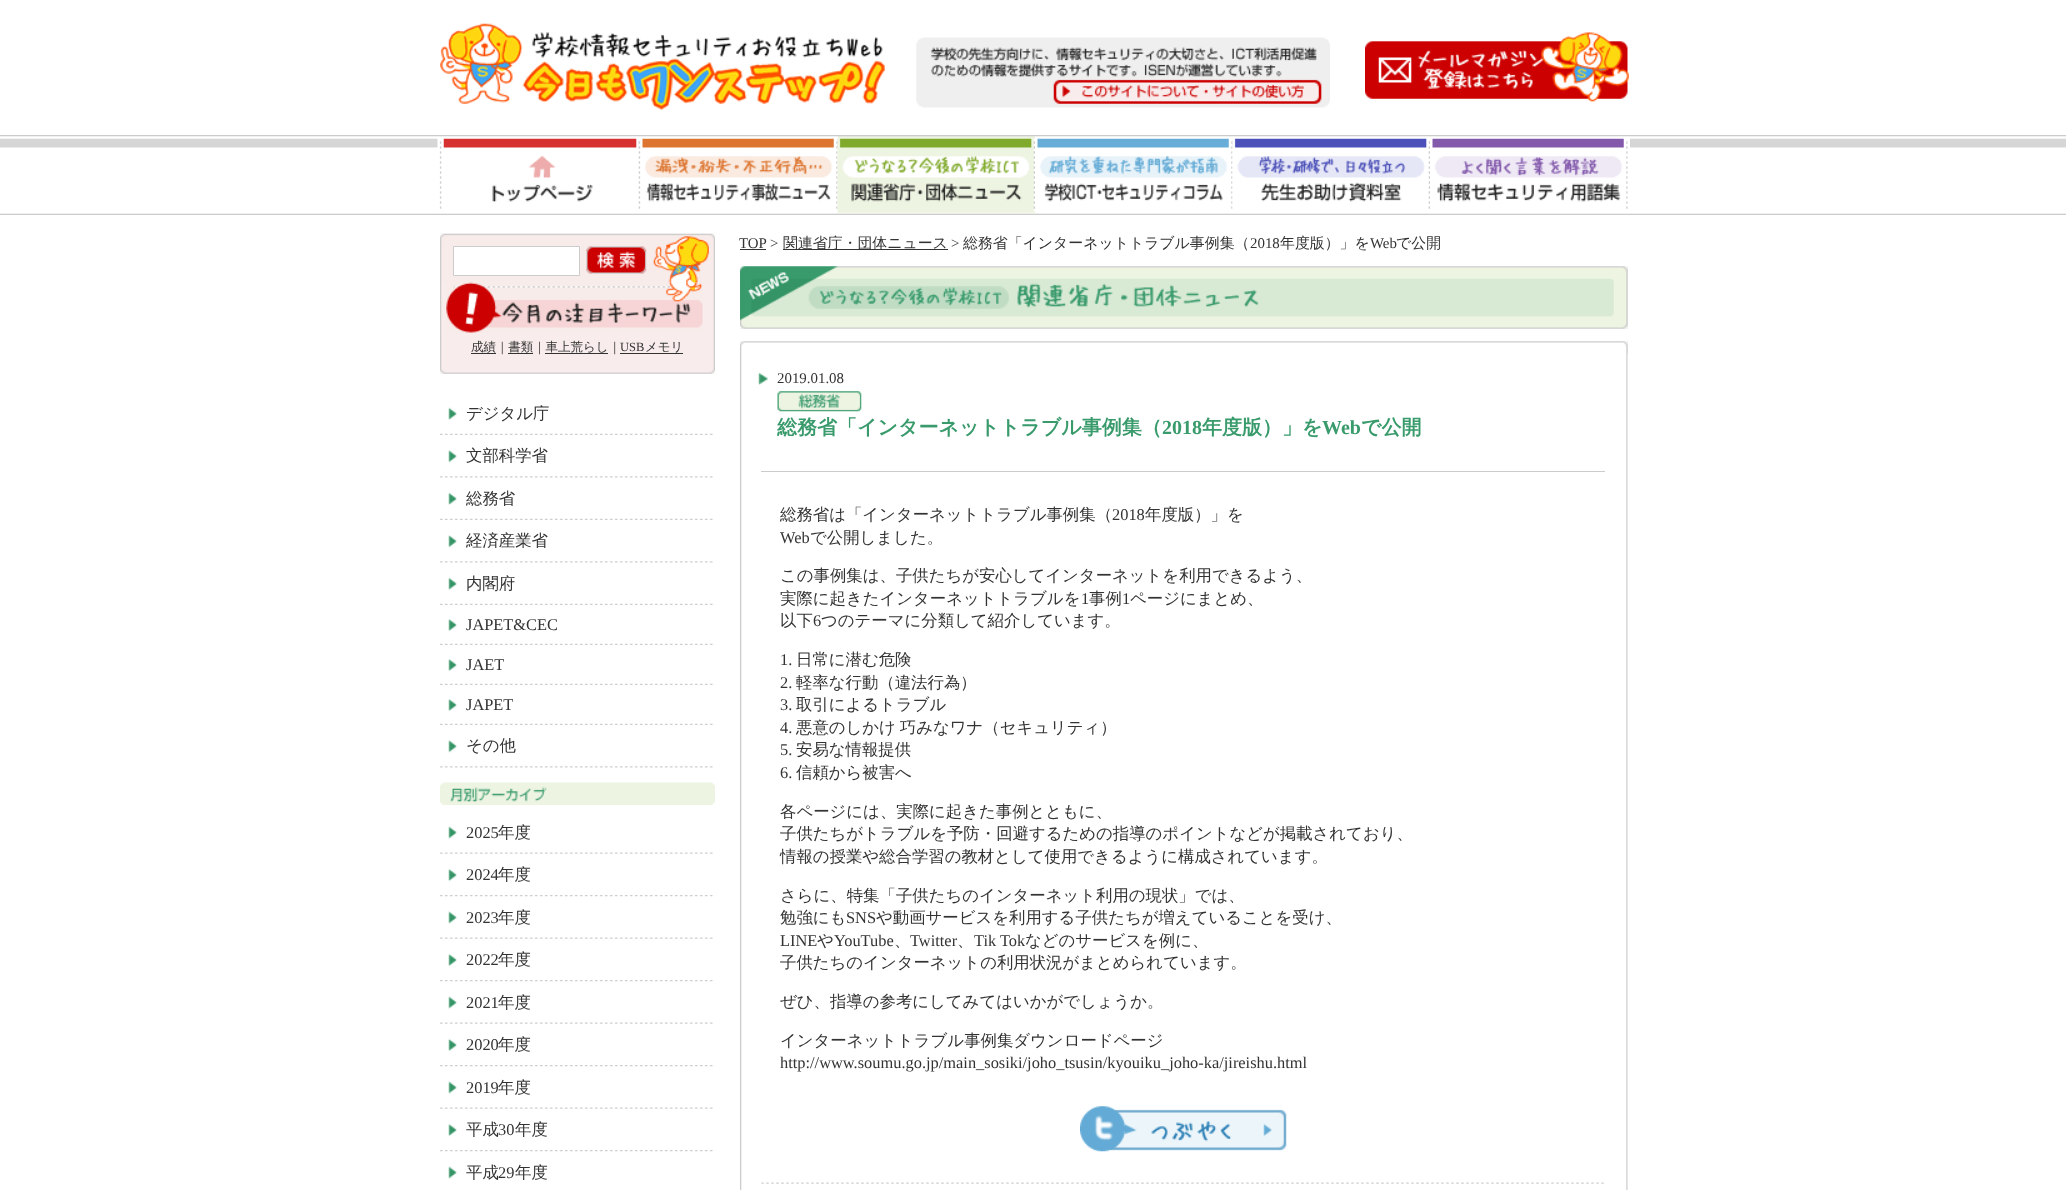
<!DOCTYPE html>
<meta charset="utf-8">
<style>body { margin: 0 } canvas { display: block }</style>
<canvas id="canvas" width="2066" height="1190"></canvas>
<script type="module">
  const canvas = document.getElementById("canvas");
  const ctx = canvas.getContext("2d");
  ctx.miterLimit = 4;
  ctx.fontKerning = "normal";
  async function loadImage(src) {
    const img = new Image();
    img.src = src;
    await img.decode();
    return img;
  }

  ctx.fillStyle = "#ffffff";
  ctx.fillRect(0, 0, 2066, 1190);
  ctx.drawImage(await loadImage("img1.png"), 440, 23, 445, 87);
  ctx.drawImage(await loadImage("img2.png"), 916, 37, 414, 71);
  ctx.drawImage(await loadImage("img3.png"), 1365, 32, 264, 70);
  ctx.drawImage(await loadImage("img4.png"), 0, 135, 2066, 80);
  ctx.drawImage(await loadImage("img5.png"), 437, 138, 202, 71);
  ctx.drawImage(await loadImage("img6.png"), 638, 138, 200, 71);
  ctx.drawImage(await loadImage("img7.png"), 837, 136, 198, 78);
  ctx.drawImage(await loadImage("img8.png"), 1035, 138, 198, 71);
  ctx.drawImage(await loadImage("img9.png"), 1232, 138, 198, 71);
  ctx.drawImage(await loadImage("img10.png"), 1430, 138, 200, 71);
  ctx.font = "14.9px Liberation Serif";
  ctx.fillStyle = "#333333";
  ctx.fillText("TOP", 739, 248);
  ctx.fillRect(740, 249, 26, 1);
  ctx.fillText(">", 770, 248);
  ctx.fillRect(783, 249, 165, 1);
  ctx.font = "500 14.9px WenQuanYi Zen Hei";
  ctx.fillText("関連省庁・団体ニュース", 783, 248);
  ctx.font = "14.9px Liberation Serif";
  ctx.fillText(">", 951, 248);
  ctx.font = "500 14.9px WenQuanYi Zen Hei";
  ctx.fillText("総務省「インターネットトラブル事例集（", 963, 248);
  ctx.font = "14.9px Liberation Serif";
  ctx.fillText("2018", 1250, 248);
  ctx.font = "500 14.9px WenQuanYi Zen Hei";
  ctx.fillText("年度版）」を", 1280, 248);
  ctx.font = "14.9px Liberation Serif";
  ctx.fillText("Web", 1370, 248);
  ctx.font = "500 14.9px WenQuanYi Zen Hei";
  ctx.fillText("で公開", 1396, 248);
  ctx.drawImage(await loadImage("img11.png"), 440, 233, 275, 141);
  ctx.drawImage(await loadImage("img12.png"), 440, 369, 275, 5);
  ctx.drawImage(await loadImage("img13.png"), 440, 233, 275, 50);
  ctx.fillStyle = "#ffffff";
  ctx.beginPath();
  ctx.rect(453.5, 246.5, 126, 29);
  ctx.fill();
  ctx.strokeStyle = "#cccccc";
  ctx.stroke();
  ctx.drawImage(await loadImage("img14.png"), 586, 246, 61, 28);
  ctx.drawImage(await loadImage("img15.png"), 446, 282, 257, 51);
  ctx.fillStyle = "#333333";
  ctx.fillRect(471, 353, 25, 1);
  ctx.font = "500 12.5px WenQuanYi Zen Hei";
  ctx.fillText("成績｜書類｜車上荒らし｜", 471, 351);
  ctx.font = "12.5px Liberation Serif";
  ctx.fillText("USB", 620, 351);
  ctx.font = "500 12.5px WenQuanYi Zen Hei";
  ctx.fillText("メモリ", 645, 351);
  ctx.fillRect(620, 353, 63, 1);
  ctx.fillRect(508, 353, 25, 1);
  ctx.fillRect(545, 353, 63, 1);
  ctx.drawImage(await loadImage("img16.png"), 440, 433, 275, 2);
  ctx.drawImage(await loadImage("img17.png"), 448, 407, 9, 13);
  ctx.font = "500 16.4px WenQuanYi Zen Hei";
  ctx.fillText("デジタル庁", 466, 419);
  ctx.drawImage(await loadImage("img18.png"), 440, 476, 273, 2);
  ctx.drawImage(await loadImage("img19.png"), 448, 450, 9, 13);
  ctx.fillText("文部科学省", 466, 461);
  ctx.drawImage(await loadImage("img16.png"), 440, 518, 275, 2);
  ctx.drawImage(await loadImage("img17.png"), 448, 492, 9, 13);
  ctx.fillText("総務省", 466, 504);
  ctx.drawImage(await loadImage("img18.png"), 440, 561, 273, 2);
  ctx.drawImage(await loadImage("img19.png"), 448, 535, 9, 13);
  ctx.fillText("経済産業省", 466, 546);
  ctx.drawImage(await loadImage("img16.png"), 440, 603, 275, 2);
  ctx.drawImage(await loadImage("img17.png"), 448, 577, 9, 13);
  ctx.fillText("内閣府", 466, 589);
  ctx.drawImage(await loadImage("img16.png"), 440, 643, 275, 2);
  ctx.drawImage(await loadImage("img20.png"), 448, 618, 9, 14);
  ctx.font = "16.4px Liberation Serif";
  ctx.fillText("JAPET&CEC", 466, 630);
  ctx.drawImage(await loadImage("img16.png"), 440, 683, 275, 2);
  ctx.drawImage(await loadImage("img20.png"), 448, 658, 9, 14);
  ctx.fillText("JAET", 466, 670);
  ctx.drawImage(await loadImage("img16.png"), 440, 723, 275, 2);
  ctx.drawImage(await loadImage("img20.png"), 448, 698, 9, 14);
  ctx.fillText("JAPET", 466, 710);
  ctx.drawImage(await loadImage("img18.png"), 440, 766, 273, 2);
  ctx.drawImage(await loadImage("img19.png"), 448, 740, 9, 13);
  ctx.font = "500 16.4px WenQuanYi Zen Hei";
  ctx.fillText("その他", 466, 751);
  ctx.drawImage(await loadImage("img21.png"), 440, 782, 275, 23);
  ctx.drawImage(await loadImage("img22.png"), 440, 852, 273, 2);
  ctx.drawImage(await loadImage("img23.png"), 448, 826, 9, 13);
  ctx.font = "16.4px Liberation Serif";
  ctx.fillText("2025", 466, 838);
  ctx.font = "500 16.4px WenQuanYi Zen Hei";
  ctx.fillText("年度", 498, 838);
  ctx.drawImage(await loadImage("img24.png"), 440, 895, 275, 2);
  ctx.drawImage(await loadImage("img20.png"), 448, 868, 9, 14);
  ctx.font = "16.4px Liberation Serif";
  ctx.fillText("2024", 466, 880);
  ctx.font = "500 16.4px WenQuanYi Zen Hei";
  ctx.fillText("年度", 498, 880);
  ctx.drawImage(await loadImage("img22.png"), 440, 937, 273, 2);
  ctx.drawImage(await loadImage("img23.png"), 448, 911, 9, 13);
  ctx.font = "16.4px Liberation Serif";
  ctx.fillText("2023", 466, 923);
  ctx.font = "500 16.4px WenQuanYi Zen Hei";
  ctx.fillText("年度", 498, 923);
  ctx.drawImage(await loadImage("img24.png"), 440, 980, 275, 2);
  ctx.drawImage(await loadImage("img20.png"), 448, 953, 9, 14);
  ctx.font = "16.4px Liberation Serif";
  ctx.fillText("2022", 466, 965);
  ctx.font = "500 16.4px WenQuanYi Zen Hei";
  ctx.fillText("年度", 498, 965);
  ctx.drawImage(await loadImage("img22.png"), 440, 1022, 273, 2);
  ctx.drawImage(await loadImage("img23.png"), 448, 996, 9, 13);
  ctx.font = "16.4px Liberation Serif";
  ctx.fillText("2021", 466, 1008);
  ctx.font = "500 16.4px WenQuanYi Zen Hei";
  ctx.fillText("年度", 498, 1008);
  ctx.drawImage(await loadImage("img24.png"), 440, 1065, 275, 2);
  ctx.drawImage(await loadImage("img20.png"), 448, 1038, 9, 14);
  ctx.font = "16.4px Liberation Serif";
  ctx.fillText("2020", 466, 1050);
  ctx.font = "500 16.4px WenQuanYi Zen Hei";
  ctx.fillText("年度", 498, 1050);
  ctx.drawImage(await loadImage("img22.png"), 440, 1107, 273, 2);
  ctx.drawImage(await loadImage("img23.png"), 448, 1081, 9, 13);
  ctx.font = "16.4px Liberation Serif";
  ctx.fillText("2019", 466, 1093);
  ctx.font = "500 16.4px WenQuanYi Zen Hei";
  ctx.fillText("年度", 498, 1093);
  ctx.drawImage(await loadImage("img24.png"), 440, 1150, 275, 2);
  ctx.drawImage(await loadImage("img20.png"), 448, 1123, 9, 14);
  ctx.fillText("平成", 466, 1135);
  ctx.font = "16.4px Liberation Serif";
  ctx.fillText("30", 498, 1135);
  ctx.font = "500 16.4px WenQuanYi Zen Hei";
  ctx.fillText("年度", 515, 1135);
  ctx.drawImage(await loadImage("img25.png"), 448, 1166, 9, 13);
  ctx.fillText("平成", 466, 1178);
  ctx.font = "16.4px Liberation Serif";
  ctx.fillText("29", 498, 1178);
  ctx.font = "500 16.4px WenQuanYi Zen Hei";
  ctx.fillText("年度", 515, 1178);
  ctx.drawImage(await loadImage("img26.png"), 740, 266, 888, 924);
  ctx.fillStyle = "#ffffff";
  ctx.fillRect(740, 329, 888, 12);
  ctx.drawImage(await loadImage("img27.png"), 740, 266, 888, 63);
  ctx.drawImage(await loadImage("img28.png"), 740, 341, 888, 13);
  ctx.drawImage(await loadImage("img29.png"), 758, 372, 10, 13);
  ctx.font = "14.9px Liberation Serif";
  ctx.fillStyle = "#333333";
  ctx.fillText("2019.01.08", 777, 383);
  ctx.drawImage(await loadImage("img30.png"), 777, 391, 85, 21);
  ctx.font = "bold 20px WenQuanYi Zen Hei";
  ctx.fillStyle = "#399b6c";
  ctx.fillText("総務省「インターネットトラブル事例集（", 777, 434);
  ctx.font = "bold 20px Liberation Serif";
  ctx.fillText("2018", 1162, 434);
  ctx.font = "bold 20px WenQuanYi Zen Hei";
  ctx.fillText("年度版）」を", 1202, 434);
  ctx.font = "bold 20px Liberation Serif";
  ctx.fillText("Web", 1322, 434);
  ctx.font = "bold 20px WenQuanYi Zen Hei";
  ctx.fillText("で公開", 1361, 434);
  ctx.fillStyle = "#cccccc";
  ctx.fillRect(761, 471, 844, 1);
  ctx.font = "500 16.4px WenQuanYi Zen Hei";
  ctx.fillStyle = "#333333";
  ctx.fillText("総務省は「インターネットトラブル事例集（", 780, 520);
  ctx.font = "16.4px Liberation Serif";
  ctx.fillText("2018", 1112, 520);
  ctx.font = "500 16.4px WenQuanYi Zen Hei";
  ctx.fillText("年度版）」を", 1145, 520);
  ctx.font = "16.4px Liberation Serif";
  ctx.fillText("Web", 780, 543);
  ctx.font = "500 16.4px WenQuanYi Zen Hei";
  ctx.fillText("で公開しました。", 810, 543);
  ctx.fillText("この事例集は、子供たちが安心してインターネットを利用できるよう、", 780, 581);
  ctx.fillText("実際に起きたインターネットトラブルを", 780, 604);
  ctx.font = "16.4px Liberation Serif";
  ctx.fillText("1", 1081, 604);
  ctx.font = "500 16.4px WenQuanYi Zen Hei";
  ctx.fillText("事例", 1089, 604);
  ctx.font = "16.4px Liberation Serif";
  ctx.fillText("1", 1122, 604);
  ctx.font = "500 16.4px WenQuanYi Zen Hei";
  ctx.fillText("ページにまとめ、", 1130, 604);
  ctx.fillText("以下", 780, 626);
  ctx.font = "16.4px Liberation Serif";
  ctx.fillText("6", 813, 626);
  ctx.font = "500 16.4px WenQuanYi Zen Hei";
  ctx.fillText("つのテーマに分類して紹介しています。", 821, 626);
  ctx.font = "16.4px Liberation Serif";
  ctx.fillText("1.", 780, 665);
  ctx.font = "500 16.4px WenQuanYi Zen Hei";
  ctx.fillText("日常に潜む危険", 796, 665);
  ctx.font = "16.4px Liberation Serif";
  ctx.fillText("2.", 780, 688);
  ctx.font = "500 16.4px WenQuanYi Zen Hei";
  ctx.fillText("軽率な行動（違法行為）", 796, 688);
  ctx.font = "16.4px Liberation Serif";
  ctx.fillText("3.", 780, 710);
  ctx.font = "500 16.4px WenQuanYi Zen Hei";
  ctx.fillText("取引によるトラブル", 796, 710);
  ctx.font = "16.4px Liberation Serif";
  ctx.fillText("4.", 780, 733);
  ctx.wordSpacing = "-1px";
  ctx.font = "500 16.4px WenQuanYi Zen Hei";
  ctx.fillText("悪意のしかけ 巧みなワナ（セキュリティ）", 796, 733);
  ctx.wordSpacing = "0px";
  ctx.font = "16.4px Liberation Serif";
  ctx.fillText("5.", 780, 755);
  ctx.font = "500 16.4px WenQuanYi Zen Hei";
  ctx.fillText("安易な情報提供", 796, 755);
  ctx.font = "16.4px Liberation Serif";
  ctx.fillText("6.", 780, 778);
  ctx.font = "500 16.4px WenQuanYi Zen Hei";
  ctx.fillText("信頼から被害へ", 796, 778);
  ctx.fillText("各ページには、実際に起きた事例とともに、", 780, 817);
  ctx.fillText("子供たちがトラブルを予防・回避するための指導のポイントなどが掲載されており、", 780, 839);
  ctx.fillText("情報の授業や総合学習の教材として使用できるように構成されています。", 780, 862);
  ctx.fillText("さらに、特集「子供たちのインターネット利用の現状」では、", 780, 901);
  ctx.fillText("勉強にも", 780, 923);
  ctx.font = "16.4px Liberation Serif";
  ctx.fillText("SNS", 846, 923);
  ctx.font = "500 16.4px WenQuanYi Zen Hei";
  ctx.fillText("や動画サービスを利用する子供たちが増えていることを受け、", 876, 923);
  ctx.font = "16.4px Liberation Serif";
  ctx.fillText("LINE", 780, 946);
  ctx.font = "500 16.4px WenQuanYi Zen Hei";
  ctx.fillText("や", 817, 946);
  ctx.font = "16.4px Liberation Serif";
  ctx.fillText("YouTube", 834, 946);
  ctx.font = "500 16.4px WenQuanYi Zen Hei";
  ctx.fillText("、", 894, 946);
  ctx.font = "16.4px Liberation Serif";
  ctx.fillText("Twitter", 910, 946);
  ctx.font = "500 16.4px WenQuanYi Zen Hei";
  ctx.fillText("、", 957, 946);
  ctx.font = "16.4px Liberation Serif";
  ctx.fillText("Tik Tok", 974, 946);
  ctx.font = "500 16.4px WenQuanYi Zen Hei";
  ctx.fillText("などのサービスを例に、", 1025, 946);
  ctx.fillText("子供たちのインターネットの利用状況がまとめられています。", 780, 968);
  ctx.fillText("ぜひ、指導の参考にしてみてはいかがでしょうか。", 780, 1007);
  ctx.fillText("インターネットトラブル事例集ダウンロードページ", 780, 1046);
  ctx.font = "16.4px Liberation Serif";
  ctx.fillText("http://www.soumu.go.jp/main_sosiki/joho_tsusin/kyouiku_joho-ka/jireishu.html", 780, 1068);
  ctx.drawImage(await loadImage("img31.png"), 1080, 1106, 207, 46);
  ctx.drawImage(await loadImage("img32.png"), 761, 1182, 843, 2);
</script>
